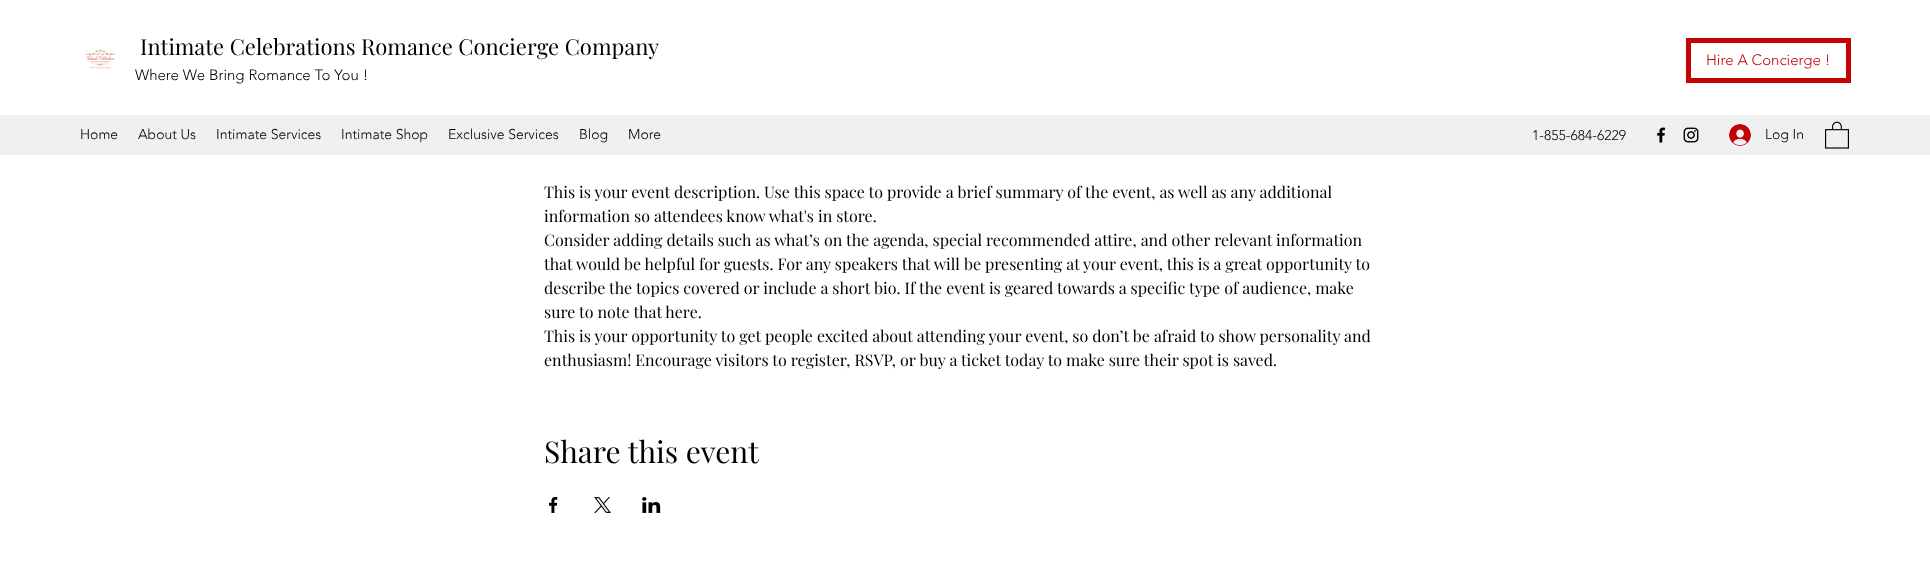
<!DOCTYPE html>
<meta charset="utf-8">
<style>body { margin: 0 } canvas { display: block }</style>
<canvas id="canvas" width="1930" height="584"></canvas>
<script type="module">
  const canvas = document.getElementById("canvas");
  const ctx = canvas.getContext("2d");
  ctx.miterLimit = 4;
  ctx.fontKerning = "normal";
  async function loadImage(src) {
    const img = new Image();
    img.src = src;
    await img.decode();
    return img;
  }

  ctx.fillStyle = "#ffffff";
  ctx.fillRect(0, 0, 1930, 584);
  ctx.drawImage(await loadImage("img1.png"), 85, 49, 30, 20);
  ctx.font = "22px Playfair Display";
  ctx.fillStyle = "#000000";
  ctx.fillText("Intimate Celebrations Romance Concierge Company", 140, 55);
  ctx.font = "300 15px 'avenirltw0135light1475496'";
  ctx.fillText("Where We Bring Romance To You !", 135, 80);
  ctx.strokeStyle = "#c40404";
  ctx.lineWidth = 5;
  ctx.strokeRect(1688.5, 40.5, 160, 40);
  ctx.fillStyle = "#c40404";
  ctx.fillText("Hire A Concierge !", 1706, 65);
  ctx.fillStyle = "#f0f0f0";
  ctx.fillRect(0, 115, 1930, 40);
  ctx.font = "300 14px 'avenirltw0135light1475496'";
  ctx.fillStyle = "#000000";
  ctx.fillText("Home", 80, 139);
  ctx.fillText("About Us", 138, 139);
  ctx.fillText("Intimate Services", 216, 139);
  ctx.fillText("Intimate Shop", 341, 139);
  ctx.fillText("Exclusive Services", 448, 139);
  ctx.fillText("Blog", 579, 139);
  ctx.fillText("More", 628, 139);
  ctx.fillText("1-855-684-6229", 1532, 140);
  ctx.drawImage(await loadImage("img2.png"), 1657, 127, 9, 16);
  ctx.drawImage(await loadImage("img3.png"), 1683, 127, 16, 16);
  ctx.drawImage(await loadImage("img4.png"), 1729, 124, 22, 22);
  ctx.fillText("Log In", 1765, 139);
  ctx.drawImage(await loadImage("img5.png"), 1825, 121, 24, 28);
  ctx.font = "16px Playfair Display";
  ctx.fillText("This is your event description. Use this space to provide a brief summary of the event, as well as any additional", 544, 198);
  ctx.fillText("information so attendees know what's in store.", 544, 222);
  ctx.fillText("Consider adding details such as what’s on the agenda, special recommended attire, and other relevant information", 544, 246);
  ctx.fillText("that would be helpful for guests. For any speakers that will be presenting at your event, this is a great opportunity to", 544, 270);
  ctx.fillText("describe the topics covered or include a short bio. If the event is geared towards a specific type of audience, make", 544, 294);
  ctx.fillText("sure to note that here.", 544, 318);
  ctx.fillText("This is your opportunity to get people excited about attending your event, so don’t be afraid to show personality and", 544, 342);
  ctx.fillText("enthusiasm! Encourage visitors to register, RSVP, or buy a ticket today to make sure their spot is saved.", 544, 366);
  ctx.font = "30px Playfair Display";
  ctx.fillText("Share this event", 544, 463);
  ctx.drawImage(await loadImage("img6.png"), 549, 497, 9, 16);
  ctx.drawImage(await loadImage("img7.png"), 594, 497, 17, 16);
  ctx.drawImage(await loadImage("img8.png"), 642, 497, 19, 16);
</script>
